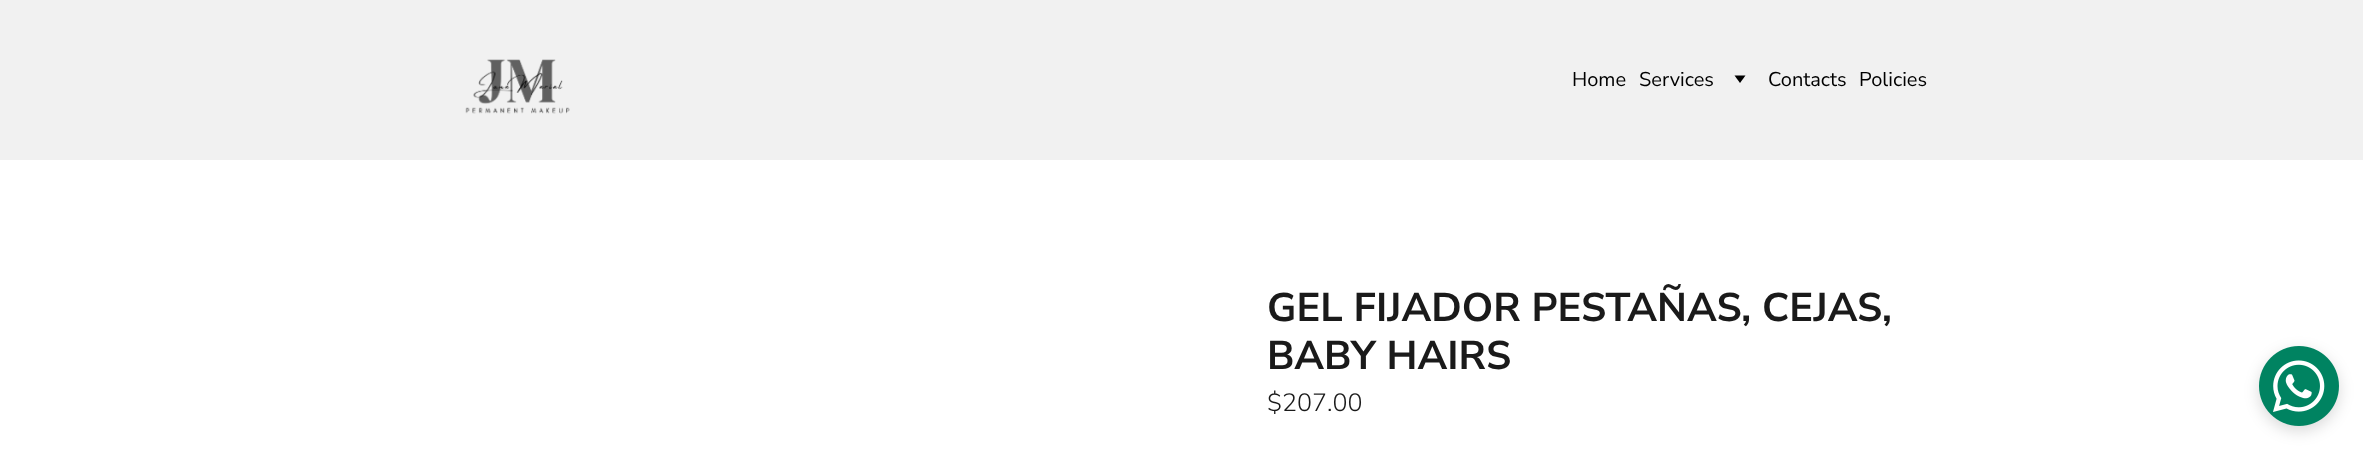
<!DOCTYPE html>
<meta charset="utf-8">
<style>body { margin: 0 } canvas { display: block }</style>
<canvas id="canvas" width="2363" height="456"></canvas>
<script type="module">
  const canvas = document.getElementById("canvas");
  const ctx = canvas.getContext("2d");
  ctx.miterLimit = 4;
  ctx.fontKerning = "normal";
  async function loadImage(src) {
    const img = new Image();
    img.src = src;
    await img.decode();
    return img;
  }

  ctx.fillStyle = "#ffffff";
  ctx.fillRect(0, 0, 2363, 456);
  ctx.fillStyle = "#f1f1f1";
  ctx.fillRect(0, 0, 2363, 160);
  ctx.drawImage(await loadImage("img1.png"), 465, 59, 105, 55);
  ctx.font = "200 20px 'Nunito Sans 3'";
  ctx.fillStyle = "#000000";
  ctx.fillText("Home", 1572, 86);
  ctx.fillText("Services", 1639, 86);
  ctx.beginPath();
  ctx.moveTo(1740, 83);
  ctx.lineTo(1734.5, 75.5);
  ctx.lineTo(1745.5, 75.5);
  ctx.closePath();
  ctx.fill();
  ctx.fillText("Contacts", 1768, 86);
  ctx.fillText("Policies", 1859, 86);
  ctx.font = "200 40px Nunito Sans";
  ctx.fillStyle = "#1a1a1a";
  ctx.fillText("GEL FIJADOR PESTAÑAS, CEJAS,", 1267, 321);
  ctx.fillText("BABY HAIRS", 1267, 369);
  ctx.font = "200 25px 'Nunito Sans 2'";
  ctx.fillText("$207.00", 1267, 411);
  ctx.fillStyle = "rgba(0, 0, 0, 0.15)";
  ctx.filter = "blur(7.5px)";
  ctx.beginPath();
  ctx.roundRect(2259, 351, 80, 80, 40);
  ctx.fill();
  ctx.filter = "none";
  ctx.drawImage(await loadImage("img2.png"), 2259, 346, 80, 80);
</script>
